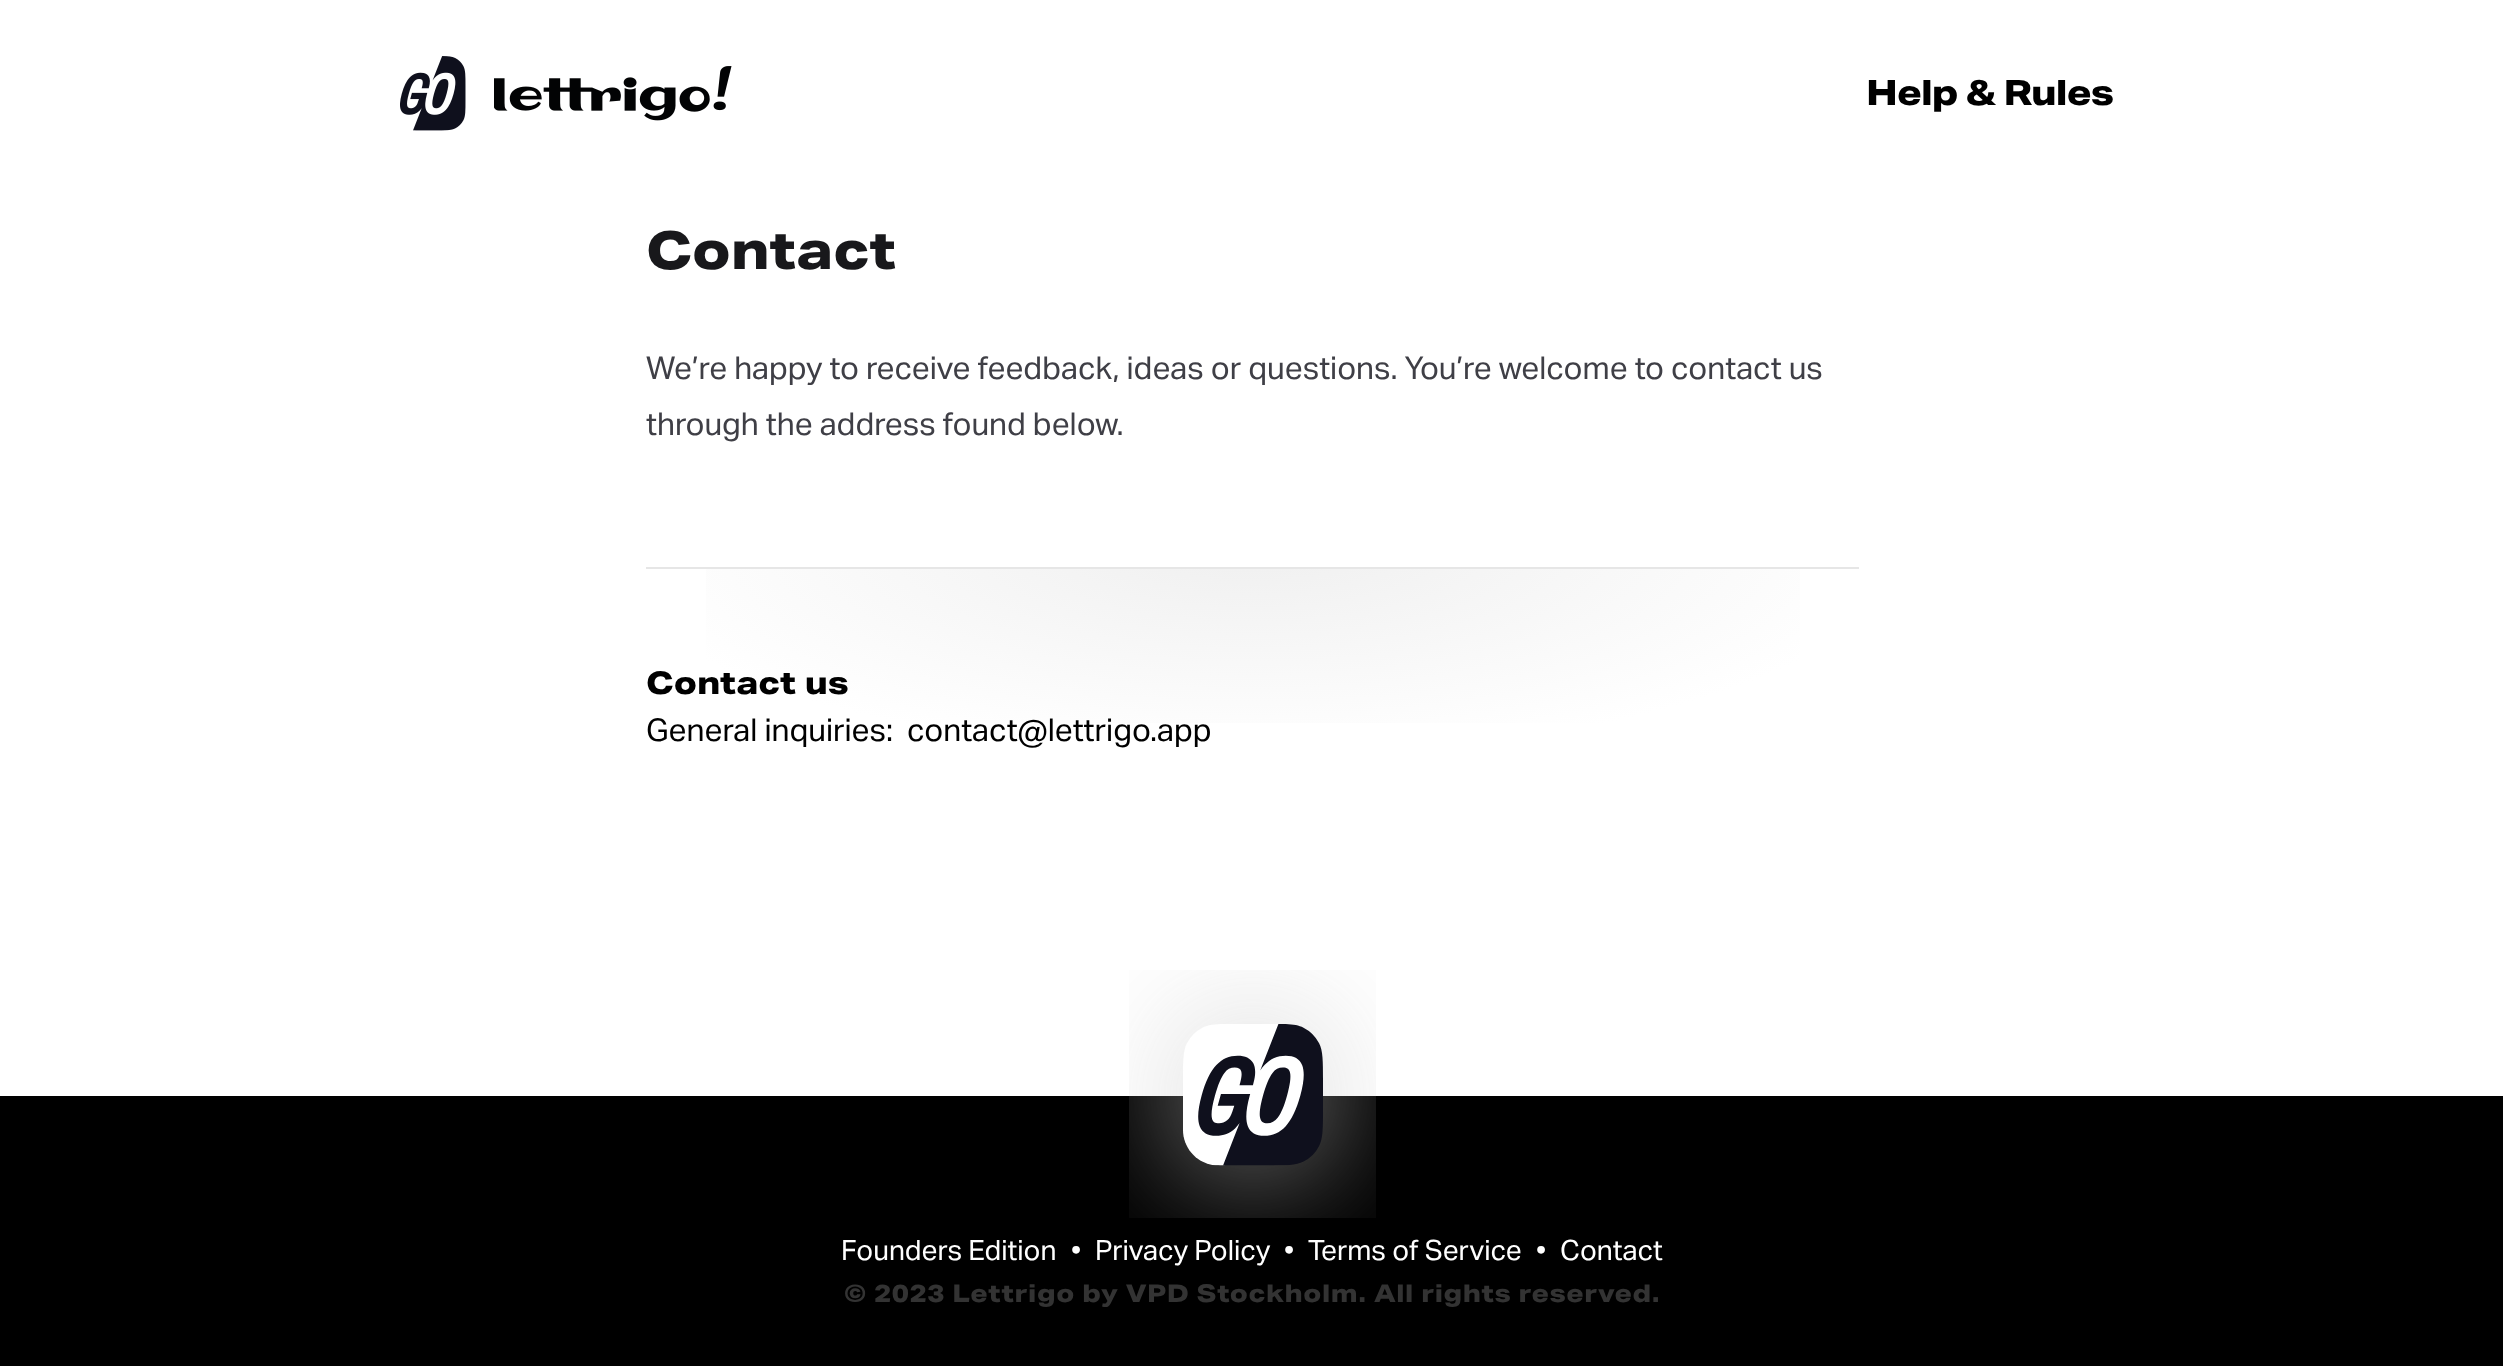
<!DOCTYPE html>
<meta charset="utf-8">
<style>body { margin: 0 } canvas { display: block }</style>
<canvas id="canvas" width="2503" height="1366"></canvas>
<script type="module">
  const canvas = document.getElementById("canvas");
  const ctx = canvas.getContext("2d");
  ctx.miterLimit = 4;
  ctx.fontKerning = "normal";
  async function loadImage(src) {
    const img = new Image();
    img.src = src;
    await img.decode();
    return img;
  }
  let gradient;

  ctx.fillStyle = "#ffffff";
  ctx.fillRect(0, 0, 2503, 1366);
  ctx.drawImage(await loadImage("img1.png"), 400, 56, 66, 75);
  ctx.drawImage(await loadImage("img2.png"), 494, 66, 238, 55);
  ctx.letterSpacing = "-0.9px";
  ctx.font = "bold 35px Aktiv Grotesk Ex";
  ctx.fillStyle = "#000000";
  ctx.fillText("Help & Rules", 1866, 105);
  ctx.letterSpacing = "0px";
  ctx.font = "bold 52.5px Aktiv Grotesk Ex";
  ctx.fillStyle = "#18181b";
  ctx.fillText("Contact", 646, 269);
  ctx.font = "31.5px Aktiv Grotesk";
  ctx.fillStyle = "#3f3f46";
  ctx.fillText("We’re happy to receive feedback, ideas or questions. You’re welcome to contact us", 646, 379);
  ctx.fillText("through the address found below.", 646, 435);
  ctx.fillStyle = "#e6e6e6";
  ctx.fillRect(646, 567, 1213, 2);
  gradient = ctx.createRadialGradient(1253, 1657.18, 0, 1253, 1657.18, 691);
  gradient.addColorStop(0, "#efefef");
  gradient.addColorStop(0.95, "#ffffff");
  ctx.fillStyle = gradient;
  ctx.beginPath();
  ctx.rect(706, 569, 1094, 154);
  ctx.save();
  ctx.clip();
  ctx.scale(1, 226 / 691);
  ctx.fillRect(0, 0, 2503, 4177);
  ctx.restore();
  ctx.font = "bold 31.5px Aktiv Grotesk Ex";
  ctx.fillStyle = "#000000";
  ctx.fillText("Contact us", 646, 694);
  ctx.font = "31.5px Aktiv Grotesk";
  ctx.fillText("General inquiries:", 646, 741);
  ctx.fillText("contact@lettrigo", 907, 741);
  ctx.fillText(".app", 1150, 741);
  ctx.fillRect(0, 1096, 2503, 270);
  ctx.drawImage(await loadImage("img3.png"), 1129, 970, 247, 248);
  ctx.font = "28px Aktiv Grotesk";
  ctx.fillStyle = "#ffffff";
  ctx.fillText("Founders Edition", 841, 1260);
  ctx.fillText("•", 1071, 1260);
  ctx.fillText("Privacy Policy", 1095, 1260);
  ctx.fillText("•", 1284, 1260);
  ctx.fillText("Terms of Service", 1308, 1260);
  ctx.fillText("•", 1536, 1260);
  ctx.fillText("Contact", 1560, 1260);
  ctx.letterSpacing = "0.6px";
  ctx.font = "bold 24.5px Aktiv Grotesk Ex";
  ctx.fillStyle = "#333333";
  ctx.fillText("© 2023 Lettrigo by VPD Stockholm. All rights reserved.", 844, 1302);
</script>
